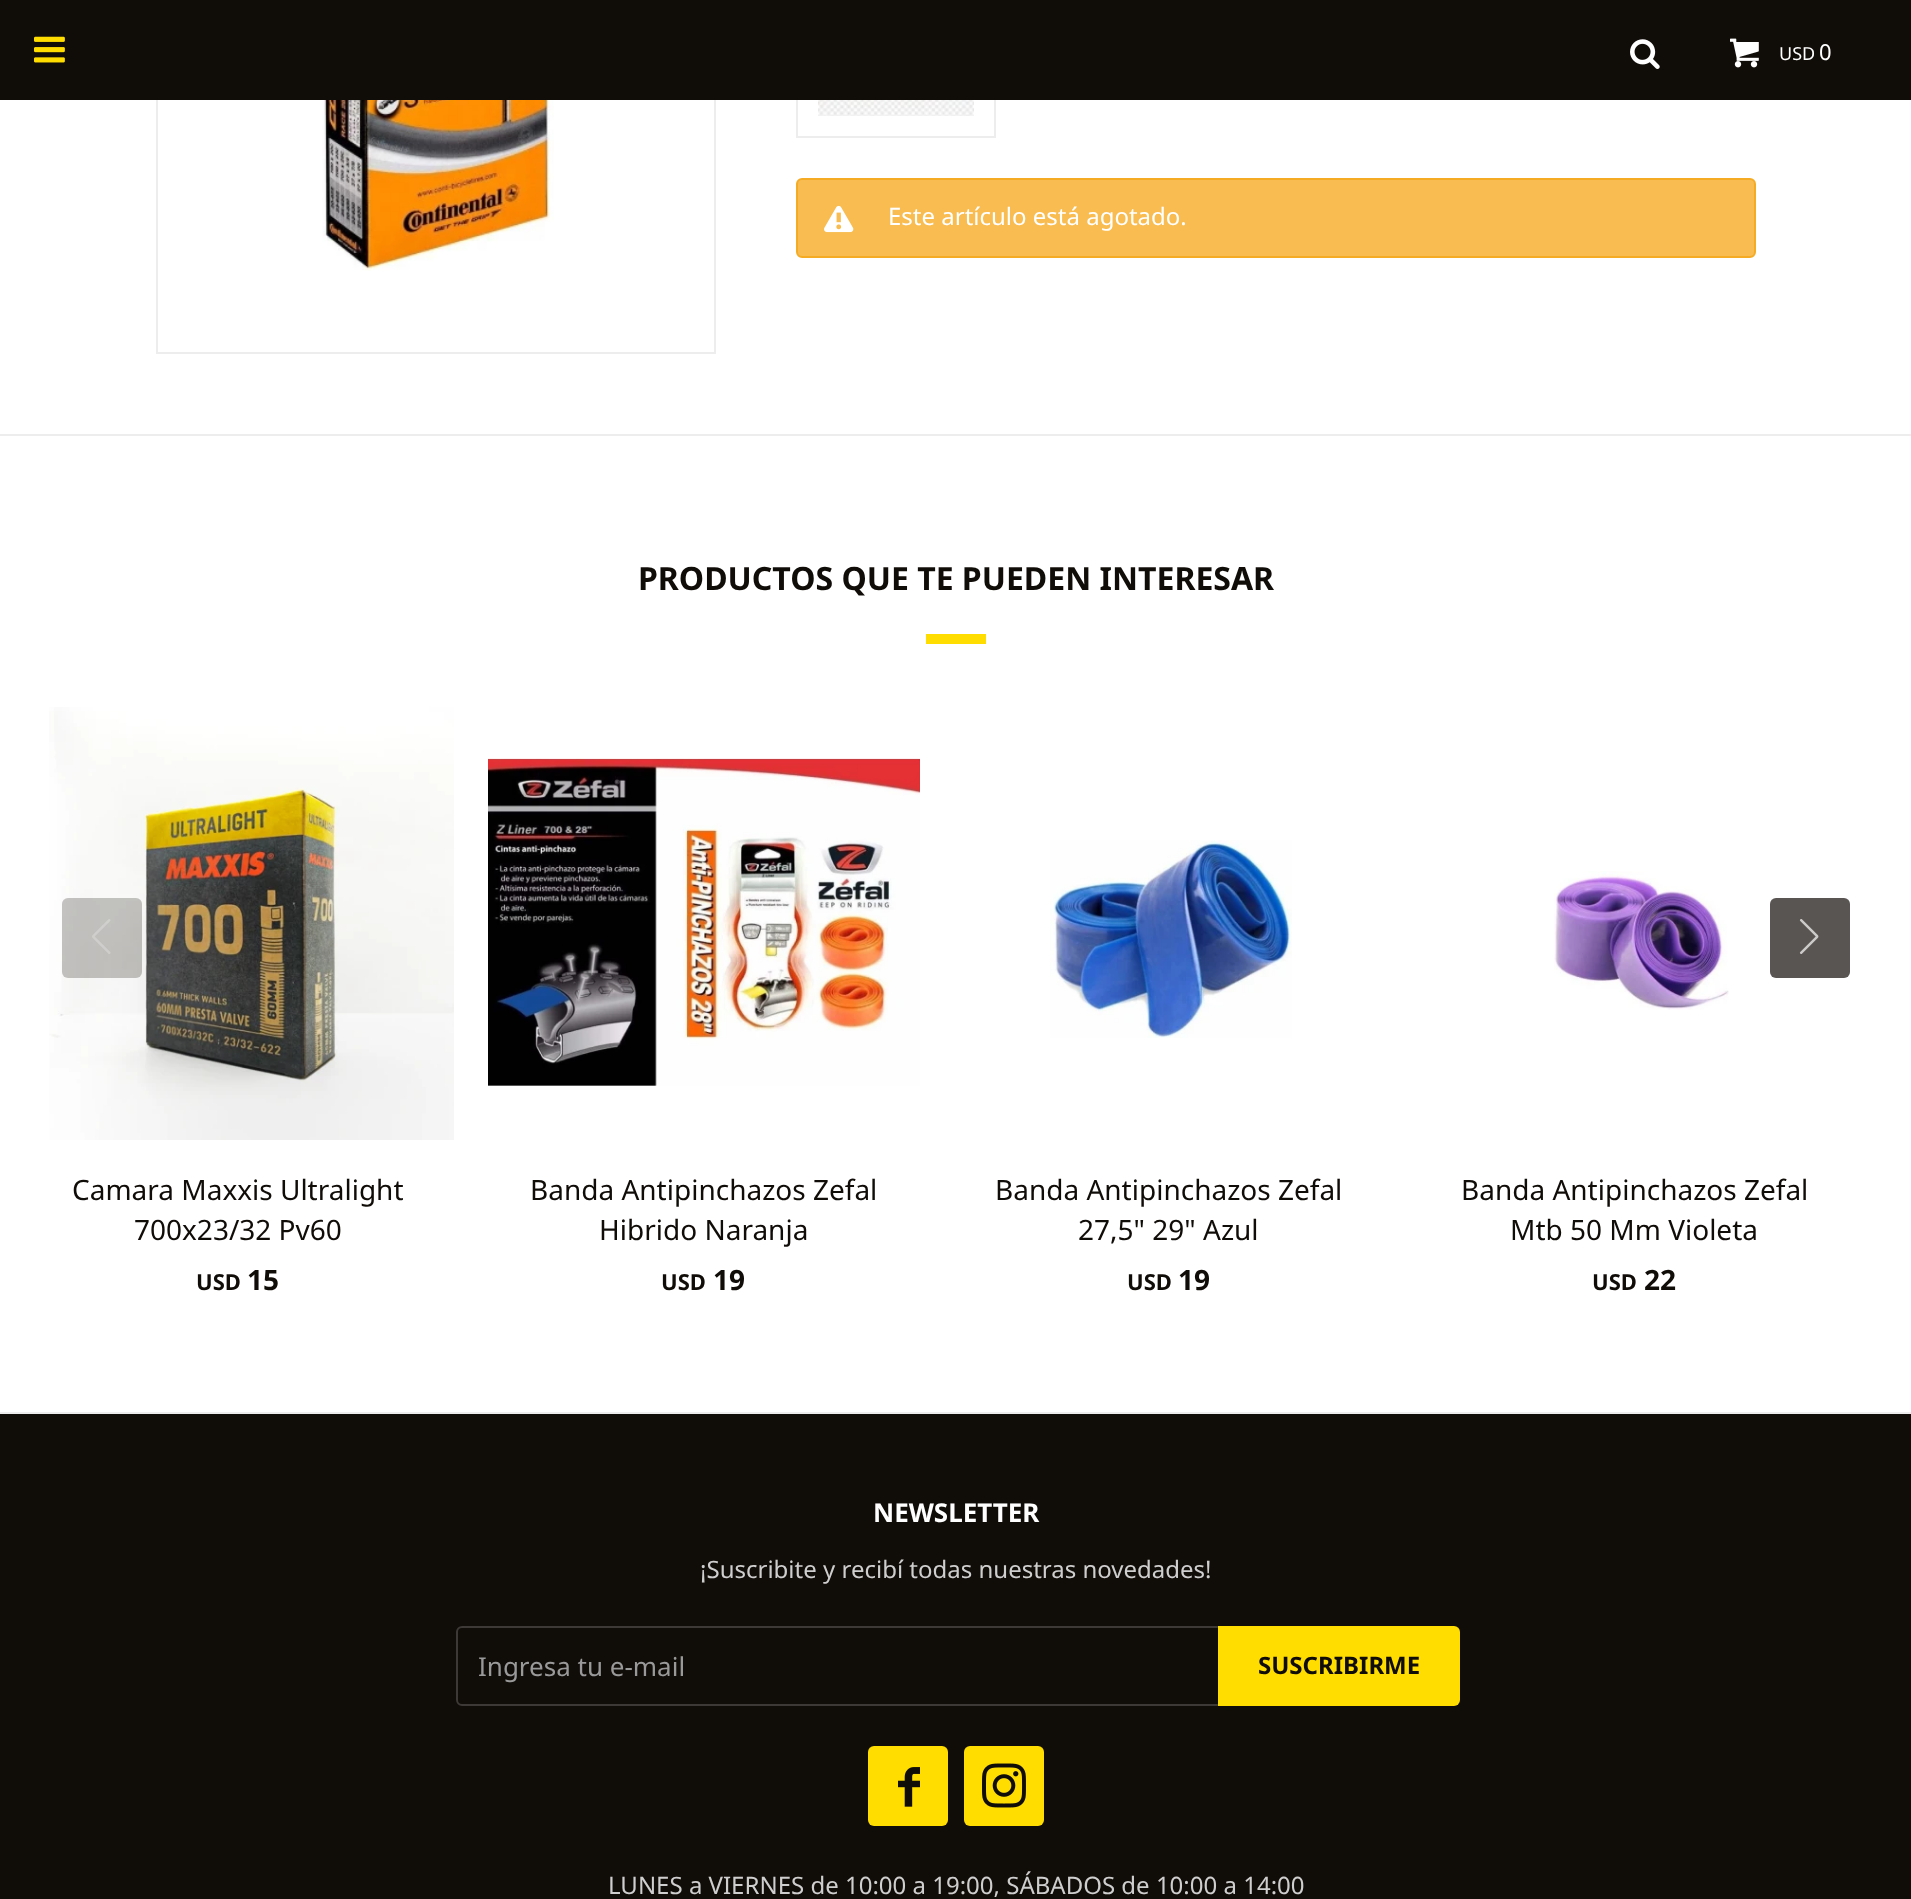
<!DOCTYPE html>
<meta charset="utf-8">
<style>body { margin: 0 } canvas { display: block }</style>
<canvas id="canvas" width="1911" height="1899"></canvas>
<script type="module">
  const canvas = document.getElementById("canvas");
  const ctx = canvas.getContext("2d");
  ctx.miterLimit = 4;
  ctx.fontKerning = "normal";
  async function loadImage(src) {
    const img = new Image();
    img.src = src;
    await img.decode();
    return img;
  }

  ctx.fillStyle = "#ffffff";
  ctx.fillRect(0, 0, 1911, 1899);
  ctx.strokeStyle = "#ededed";
  ctx.lineWidth = 2;
  ctx.strokeRect(157, -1, 558, 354);
  ctx.strokeRect(797, -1, 198, 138);
  ctx.fillStyle = "#100c08";
  ctx.fillRect(0, 0, 1911, 100);
  ctx.drawImage(await loadImage("img1.png"), 34, 36, 31, 27);
  ctx.drawImage(await loadImage("img2.png"), 1630, 39, 30, 30);
  ctx.drawImage(await loadImage("img3.png"), 1730, 38, 29, 30);
  ctx.font = "18px Noto Sans";
  ctx.fillStyle = "#ffffff";
  ctx.fillText("USD", 1779, 60);
  ctx.font = "22px Noto Sans";
  ctx.fillText("0", 1819, 60);
  ctx.drawImage(await loadImage("img4.png"), 322, 100, 232, 171);
  ctx.drawImage(await loadImage("img5.png"), 818, 100, 156, 16);
  ctx.fillStyle = "#f8bc50";
  ctx.beginPath();
  ctx.roundRect(797, 179, 958, 78, 5);
  ctx.fill();
  ctx.strokeStyle = "#f6ab24";
  ctx.stroke();
  ctx.drawImage(await loadImage("img6.png"), 824, 205, 30, 28);
  ctx.font = "24px Noto Sans";
  ctx.fillStyle = "#ffffff";
  ctx.fillText("Este artículo está agotado.", 888, 225);
  ctx.fillStyle = "#ededed";
  ctx.fillRect(0, 434, 1911, 2);
  ctx.font = "bold 32px Noto Sans";
  ctx.fillStyle = "#100c08";
  ctx.fillText("PRODUCTOS QUE TE PUEDEN INTERESAR", 638, 590);
  ctx.fillStyle = "#ffdd00";
  ctx.fillRect(926, 634, 60, 10);
  ctx.drawImage(await loadImage("img9.png"), 49, 707, 405, 433);
  ctx.fillStyle = "rgba(16, 12, 8, 0.24)";
  ctx.beginPath();
  ctx.roundRect(62, 898, 80, 80, 6);
  ctx.fill();
  ctx.drawImage(await loadImage("img7.png"), 92, 919, 19, 35);
  ctx.fillStyle = "#585552";
  ctx.beginPath();
  ctx.roundRect(1770, 898, 80, 80, 6);
  ctx.fill();
  ctx.drawImage(await loadImage("img8.png"), 1799, 919, 20, 35);
  ctx.font = "28px Noto Sans";
  ctx.fillStyle = "#100c08";
  ctx.fillText("Camara Maxxis Ultralight", 72, 1200);
  ctx.fillText("700x23/32 Pv60", 134, 1240);
  ctx.font = "bold 22px Noto Sans";
  ctx.fillText("USD", 196, 1290);
  ctx.font = "bold 28px Noto Sans";
  ctx.fillText("15", 247, 1290);
  ctx.drawImage(await loadImage("img10.png"), 488, 758, 432, 328);
  ctx.font = "28px Noto Sans";
  ctx.fillText("Banda Antipinchazos Zefal", 530, 1200);
  ctx.fillText("Hibrido Naranja", 599, 1240);
  ctx.font = "bold 22px Noto Sans";
  ctx.fillText("USD", 661, 1290);
  ctx.font = "bold 28px Noto Sans";
  ctx.fillText("19", 713, 1290);
  ctx.drawImage(await loadImage("img11.png"), 1050, 840, 242, 198);
  ctx.font = "28px Noto Sans";
  ctx.fillText("Banda Antipinchazos Zefal", 995, 1200);
  ctx.fillText("27,5\" 29\" Azul", 1078, 1240);
  ctx.font = "bold 22px Noto Sans";
  ctx.fillText("USD", 1127, 1290);
  ctx.font = "bold 28px Noto Sans";
  ctx.fillText("19", 1178, 1290);
  ctx.drawImage(await loadImage("img12.png"), 1554, 871, 175, 139);
  ctx.font = "28px Noto Sans";
  ctx.fillText("Banda Antipinchazos Zefal", 1461, 1200);
  ctx.fillText("Mtb 50 Mm Violeta", 1510, 1240);
  ctx.font = "bold 22px Noto Sans";
  ctx.fillText("USD", 1592, 1290);
  ctx.font = "bold 28px Noto Sans";
  ctx.fillText("22", 1644, 1290);
  ctx.fillRect(0, 1414, 1911, 485);
  ctx.fillStyle = "#ededed";
  ctx.fillRect(0, 1412, 1911, 2);
  ctx.font = "bold 26px Noto Sans";
  ctx.fillStyle = "#ffffff";
  ctx.fillText("NEWSLETTER", 873, 1522);
  ctx.font = "24px Noto Sans";
  ctx.fillStyle = "#cfcece";
  ctx.fillText("¡Suscribite y recibí todas nuestras novedades!", 700, 1578);
  ctx.beginPath();
  ctx.roundRect(457, 1627, 998, 78, 5);
  ctx.strokeStyle = "#3c3936";
  ctx.stroke();
  ctx.font = "26px Noto Sans";
  ctx.fillStyle = "#999999";
  ctx.fillText("Ingresa tu e-mail", 478, 1676);
  ctx.fillStyle = "#ffdd00";
  ctx.beginPath();
  ctx.roundRect(1218, 1626, 242, 80, [0, 6, 6, 0]);
  ctx.fill();
  ctx.font = "bold 24px Noto Sans";
  ctx.fillStyle = "#100c08";
  ctx.fillText("SUSCRIBIRME", 1258, 1674);
  ctx.fillStyle = "#ffdd00";
  ctx.beginPath();
  ctx.roundRect(868, 1746, 80, 80, 6);
  ctx.fill();
  ctx.drawImage(await loadImage("img13.png"), 898, 1767, 22, 40);
  ctx.beginPath();
  ctx.roundRect(964, 1746, 80, 80, 6);
  ctx.fill();
  ctx.drawImage(await loadImage("img14.png"), 982, 1763, 44, 45);
  ctx.font = "24px Noto Sans";
  ctx.fillStyle = "#cfcece";
  ctx.fillText("LUNES a VIERNES de 10:00 a 19:00, SÁBADOS de 10:00 a 14:00", 608, 1894);
</script>
